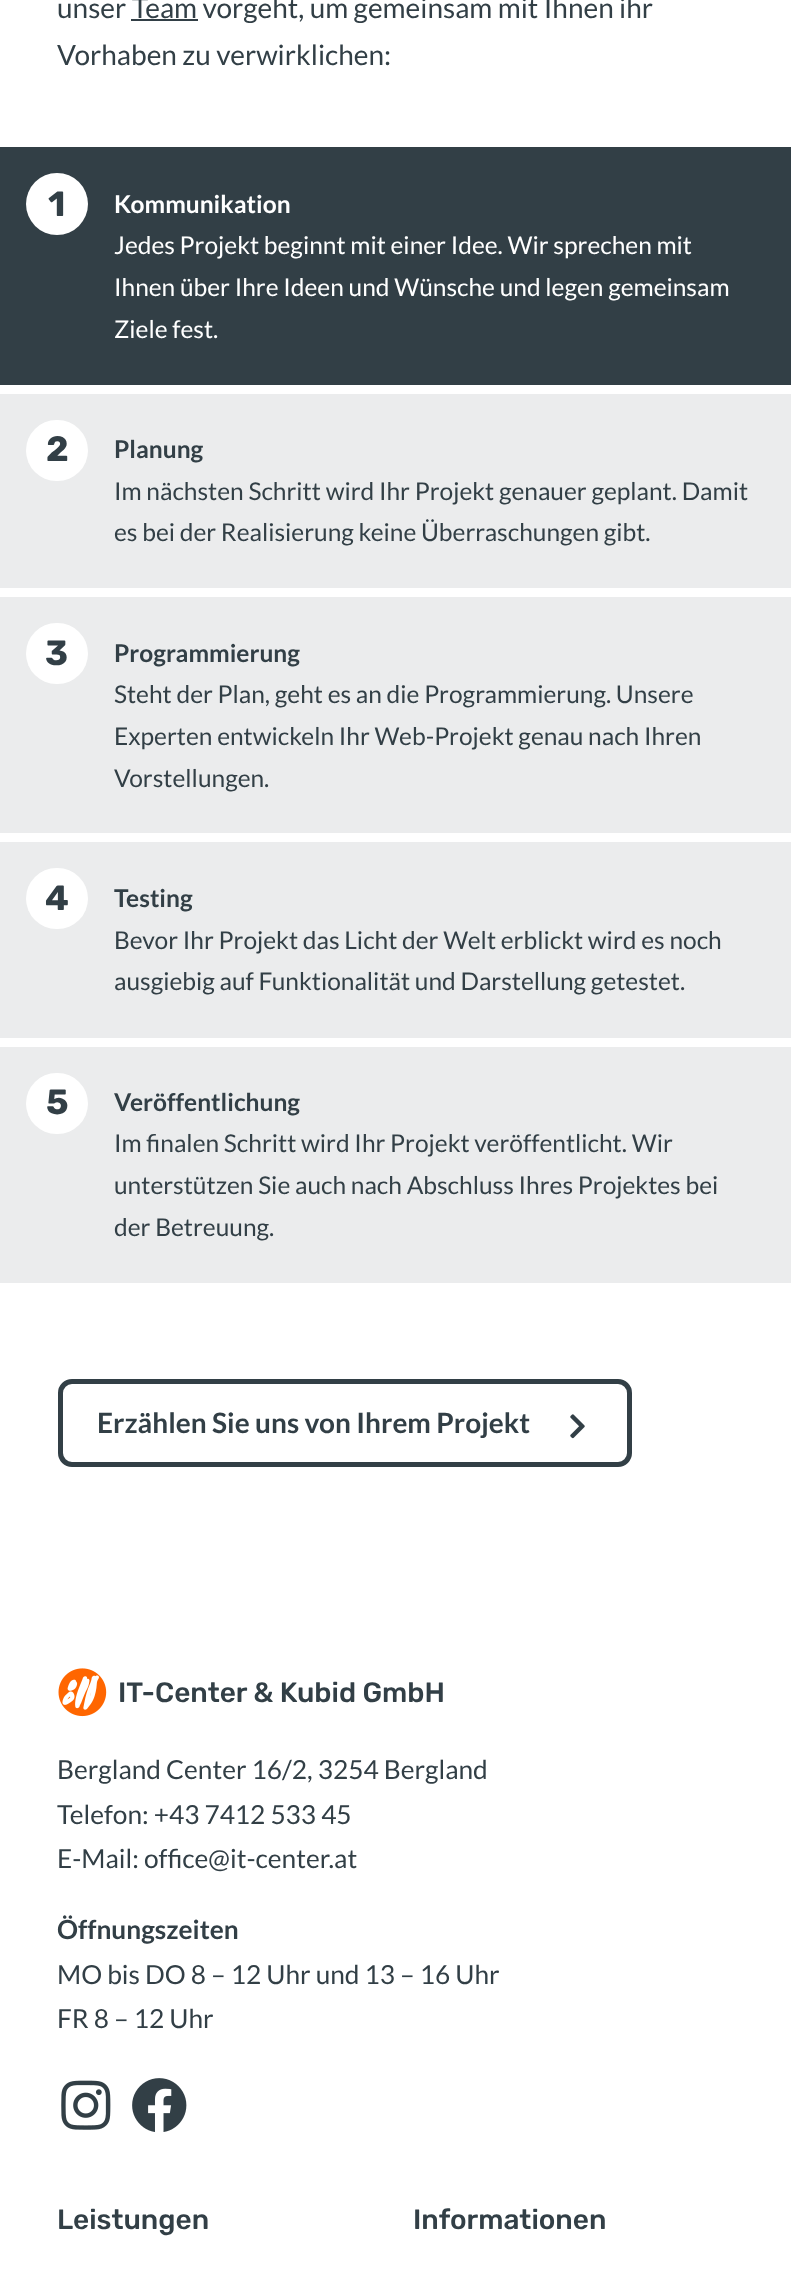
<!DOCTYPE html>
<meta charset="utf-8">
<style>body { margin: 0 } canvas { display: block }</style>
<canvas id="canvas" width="791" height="2295"></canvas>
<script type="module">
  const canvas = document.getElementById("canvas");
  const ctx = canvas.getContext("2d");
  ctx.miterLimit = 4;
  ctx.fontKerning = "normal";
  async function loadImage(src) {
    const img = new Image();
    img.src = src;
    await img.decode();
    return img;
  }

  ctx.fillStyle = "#ffffff";
  ctx.fillRect(0, 0, 791, 2295);
  ctx.font = "28px Lato";
  ctx.fillStyle = "#323f46";
  ctx.fillText("unser Team vorgeht, um gemeinsam mit Ihnen ihr", 57, 18);
  ctx.fillRect(131, 19, 67, 2);
  ctx.fillText("Vorhaben zu verwirklichen:", 57, 65);
  ctx.fillRect(0, 147, 791, 238);
  ctx.fillStyle = "#ffffff";
  ctx.beginPath();
  ctx.arc(57, 204, 31, 0, Math.PI * 2);
  ctx.fill();
  ctx.font = "bold 35px Rubik";
  ctx.fillStyle = "#323f46";
  ctx.fillText("1", 48, 216);
  ctx.font = "bold 24.5px Lato";
  ctx.fillStyle = "#ffffff";
  ctx.fillText("Kommunikation", 114, 213);
  ctx.font = "24.5px Lato";
  ctx.fillText("Jedes Projekt beginnt mit einer Idee. Wir sprechen mit", 114, 254);
  ctx.fillText("Ihnen über Ihre Ideen und Wünsche und legen gemeinsam", 114, 296);
  ctx.fillText("Ziele fest.", 114, 338);
  ctx.fillStyle = "#ebeced";
  ctx.fillRect(0, 394, 791, 194);
  ctx.fillStyle = "#ffffff";
  ctx.beginPath();
  ctx.roundRect(26, 420, 62, 61, 30.5);
  ctx.fill();
  ctx.font = "bold 35px Rubik";
  ctx.fillStyle = "#323f46";
  ctx.fillText("2", 46, 461);
  ctx.font = "bold 24.5px Lato";
  ctx.fillText("Planung", 114, 458);
  ctx.font = "24.5px Lato";
  ctx.fillText("Im nächsten Schritt wird Ihr Projekt genauer geplant. Damit", 114, 500);
  ctx.fillText("es bei der Realisierung keine Überraschungen gibt.", 114, 541);
  ctx.fillStyle = "#ebeced";
  ctx.fillRect(0, 597, 791, 236);
  ctx.fillStyle = "#ffffff";
  ctx.beginPath();
  ctx.roundRect(26, 623, 62, 61, 30.5);
  ctx.fill();
  ctx.font = "bold 35px Rubik";
  ctx.fillStyle = "#323f46";
  ctx.fillText("3", 45, 665);
  ctx.font = "bold 24.5px Lato";
  ctx.fillText("Programmierung", 114, 662);
  ctx.font = "24.5px Lato";
  ctx.fillText("Steht der Plan, geht es an die Programmierung. Unsere", 114, 703);
  ctx.fillText("Experten entwickeln Ihr Web-Projekt genau nach Ihren", 114, 745);
  ctx.fillText("Vorstellungen.", 114, 787);
  ctx.fillStyle = "#ebeced";
  ctx.fillRect(0, 842, 791, 196);
  ctx.fillStyle = "#ffffff";
  ctx.beginPath();
  ctx.roundRect(26, 868, 62, 61, 30.5);
  ctx.fill();
  ctx.font = "bold 35px Rubik";
  ctx.fillStyle = "#323f46";
  ctx.fillText("4", 45, 910);
  ctx.font = "bold 24.5px Lato";
  ctx.fillText("Testing", 114, 907);
  ctx.font = "24.5px Lato";
  ctx.fillText("Bevor Ihr Projekt das Licht der Welt erblickt wird es noch", 114, 949);
  ctx.fillText("ausgiebig auf Funktionalität und Darstellung getestet.", 114, 990);
  ctx.fillStyle = "#ebeced";
  ctx.fillRect(0, 1047, 791, 236);
  ctx.fillStyle = "#ffffff";
  ctx.beginPath();
  ctx.roundRect(26, 1073, 62, 61, 30.5);
  ctx.fill();
  ctx.font = "bold 35px Rubik";
  ctx.fillStyle = "#323f46";
  ctx.fillText("5", 46, 1114);
  ctx.font = "bold 24.5px Lato";
  ctx.fillText("Veröffentlichung", 114, 1111);
  ctx.font = "24.5px Lato";
  ctx.fillText("Im finalen Schritt wird Ihr Projekt veröffentlicht. Wir", 114, 1152);
  ctx.fillText("unterstützen Sie auch nach Abschluss Ihres Projektes bei", 114, 1194);
  ctx.fillText("der Betreuung.", 114, 1236);
  ctx.beginPath();
  ctx.roundRect(60.5, 1381.5, 569, 83, 11.5);
  ctx.strokeStyle = "#323f46";
  ctx.lineWidth = 5;
  ctx.stroke();
  ctx.font = "bold 28px Lato";
  ctx.fillText("Erzählen Sie uns von Ihrem Projekt", 97, 1433);
  ctx.drawImage(await loadImage("img1.png"), 570, 1414, 15, 25);
  ctx.drawImage(await loadImage("img2.png"), 58, 1668, 49, 49);
  ctx.font = "500 28px Rubik";
  ctx.fillText("IT-Center & Kubid GmbH", 118, 1702);
  ctx.font = "26.25px Lato";
  ctx.fillText("Bergland Center 16/2, 3254 Bergland", 57, 1779);
  ctx.fillText("Telefon: +43 7412 533 45", 57, 1824);
  ctx.fillText("E-Mail: office@it-center.at", 57, 1868);
  ctx.font = "bold 26.25px Lato";
  ctx.fillText("Öffnungszeiten", 57, 1939);
  ctx.font = "26.25px Lato";
  ctx.fillText("MO bis DO 8 – 12 Uhr und 13 – 16 Uhr", 57, 1984);
  ctx.fillText("FR 8 – 12 Uhr", 57, 2028);
  ctx.drawImage(await loadImage("img3.png"), 61, 2080, 50, 50);
  ctx.drawImage(await loadImage("img4.png"), 132, 2078, 55, 54);
  ctx.font = "500 28px Rubik";
  ctx.fillText("Leistungen", 57, 2229);
  ctx.fillText("Informationen", 413, 2229);
</script>
